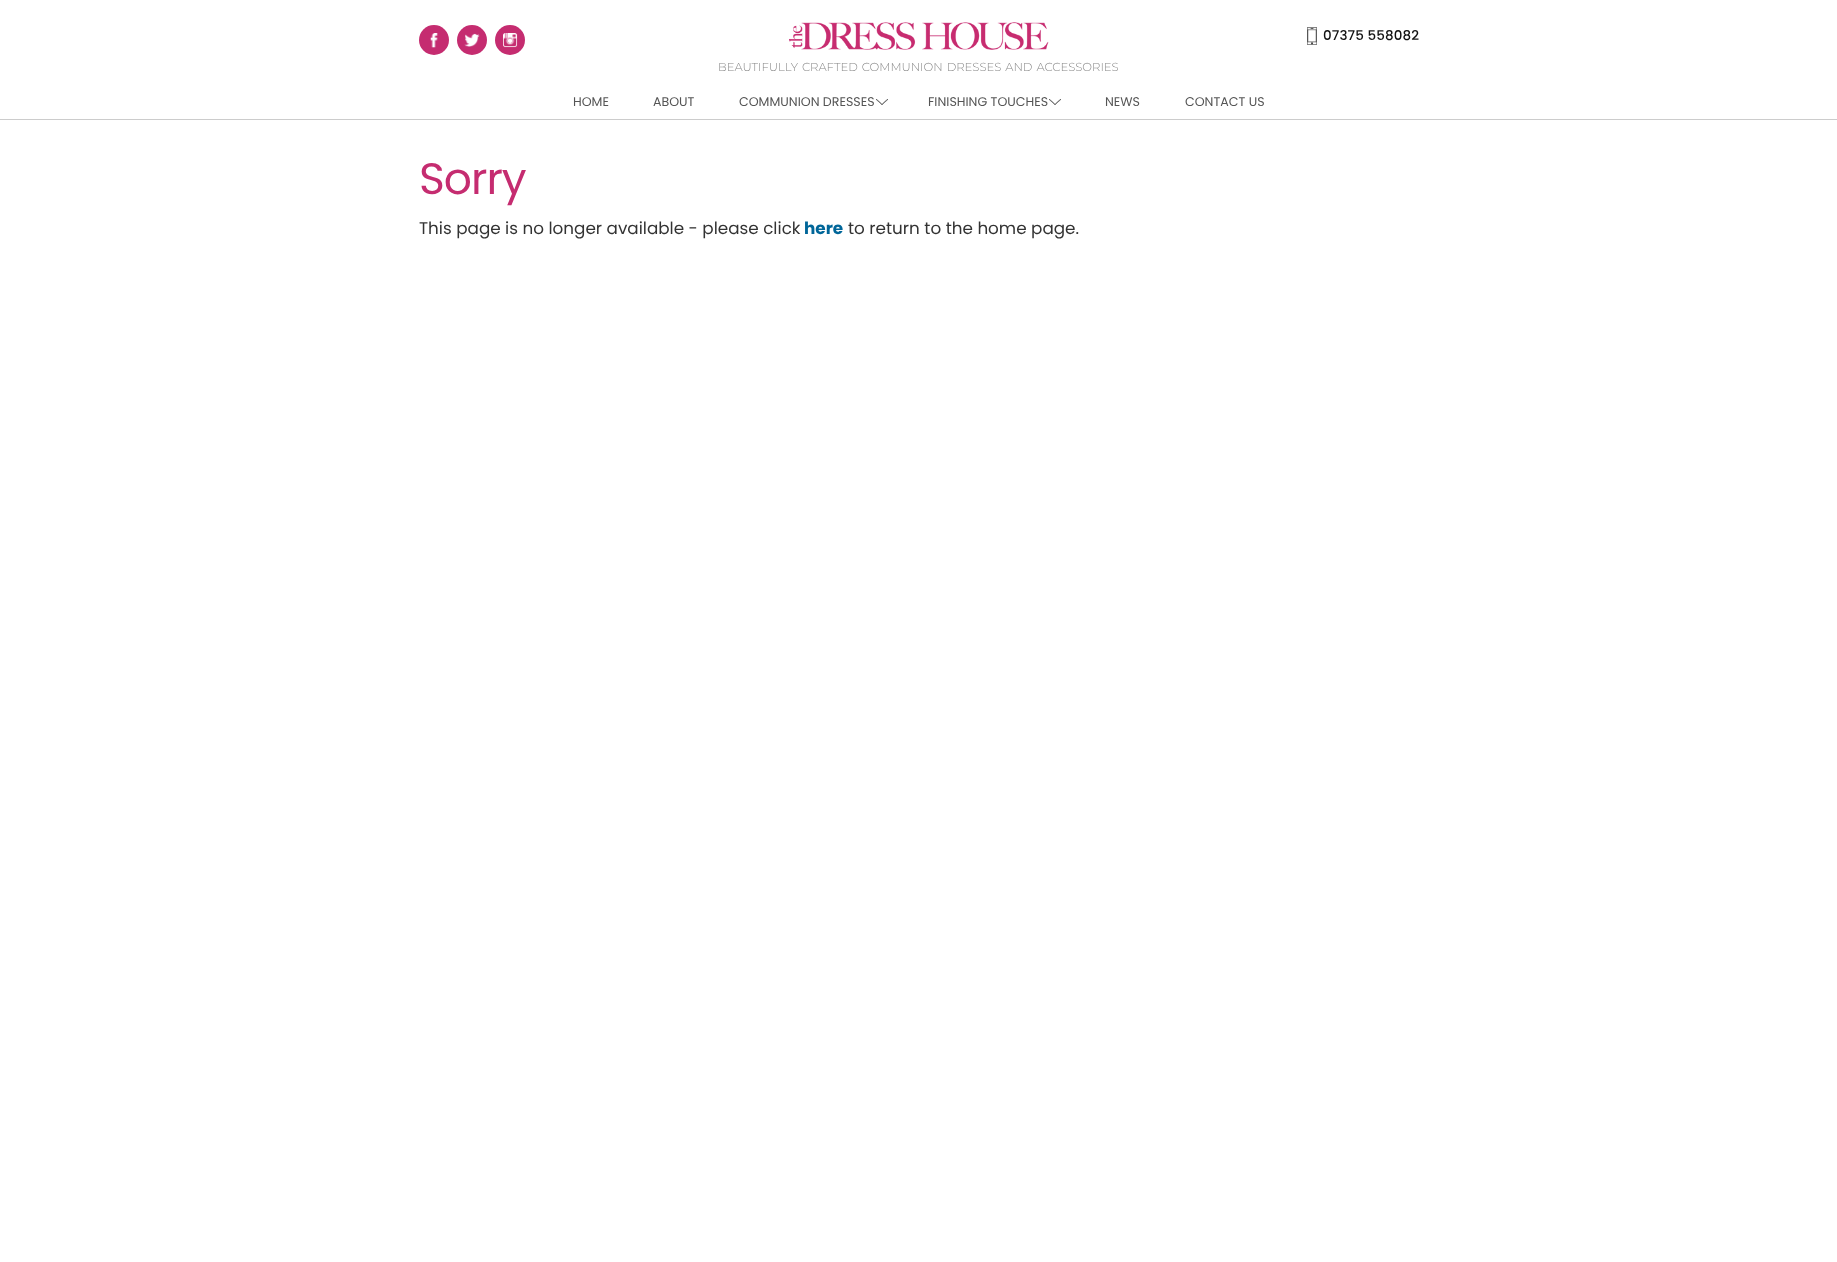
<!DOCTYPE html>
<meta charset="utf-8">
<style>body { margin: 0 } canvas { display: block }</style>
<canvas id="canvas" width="1837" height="1262"></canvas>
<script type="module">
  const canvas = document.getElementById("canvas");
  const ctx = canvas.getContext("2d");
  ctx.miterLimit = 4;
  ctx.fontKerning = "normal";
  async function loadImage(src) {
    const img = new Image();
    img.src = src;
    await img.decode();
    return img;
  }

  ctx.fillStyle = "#ffffff";
  ctx.fillRect(0, 0, 1837, 1262);
  ctx.fillStyle = "#cccccc";
  ctx.fillRect(0, 119, 1837, 1);
  ctx.fillStyle = "#c52c70";
  ctx.beginPath();
  ctx.arc(434, 40, 15, 0, Math.PI * 2);
  ctx.fill();
  ctx.drawImage(await loadImage("img1.png"), 430, 33, 8, 15);
  ctx.beginPath();
  ctx.arc(472, 40, 15, 0, Math.PI * 2);
  ctx.fill();
  ctx.drawImage(await loadImage("img2.png"), 464, 33, 16, 14);
  ctx.beginPath();
  ctx.arc(510, 40, 15, 0, Math.PI * 2);
  ctx.fill();
  ctx.drawImage(await loadImage("img3.png"), 503, 33, 15, 15);
  ctx.drawImage(await loadImage("img4.png"), 789, 22, 260, 28);
  ctx.drawImage(await loadImage("img5.png"), 1307, 27, 10, 18);
  ctx.letterSpacing = "0.1px";
  ctx.font = "500 13.5px Poppins";
  ctx.fillStyle = "#111111";
  ctx.fillText("07375 558082", 1323, 40);
  ctx.letterSpacing = "0px";
  ctx.wordSpacing = "1px";
  ctx.font = "300 11.6px Montserrat";
  ctx.fillStyle = "#888888";
  ctx.fillText("BEAUTIFULLY CRAFTED COMMUNION DRESSES AND ACCESSORIES", 718, 71);
  ctx.wordSpacing = "0px";
  ctx.font = "12.6px Poppins";
  ctx.fillStyle = "#555555";
  ctx.fillText("HOME", 573, 106);
  ctx.fillText("ABOUT", 653, 106);
  ctx.fillText("COMMUNION DRESSES", 739, 106);
  ctx.drawImage(await loadImage("img6.png"), 876, 99, 12, 6);
  ctx.fillText("FINISHING TOUCHES", 928, 106);
  ctx.drawImage(await loadImage("img6.png"), 1049, 99, 12, 6);
  ctx.fillText("NEWS", 1105, 106);
  ctx.fillText("CONTACT US", 1185, 106);
  ctx.letterSpacing = "-1px";
  ctx.font = "44px Poppins";
  ctx.fillStyle = "#c52c70";
  ctx.fillText("Sorry", 419, 194);
  ctx.letterSpacing = "0px";
  ctx.font = "16.8px Poppins";
  ctx.fillStyle = "#333333";
  ctx.fillText("This page is no longer available - please click", 419, 234);
  ctx.font = "bold 16.8px Poppins";
  ctx.fillStyle = "#006699";
  ctx.fillText("here", 804, 234);
  ctx.font = "16.8px Poppins";
  ctx.fillStyle = "#333333";
  ctx.fillText("to return to the home page.", 848, 234);
</script>
